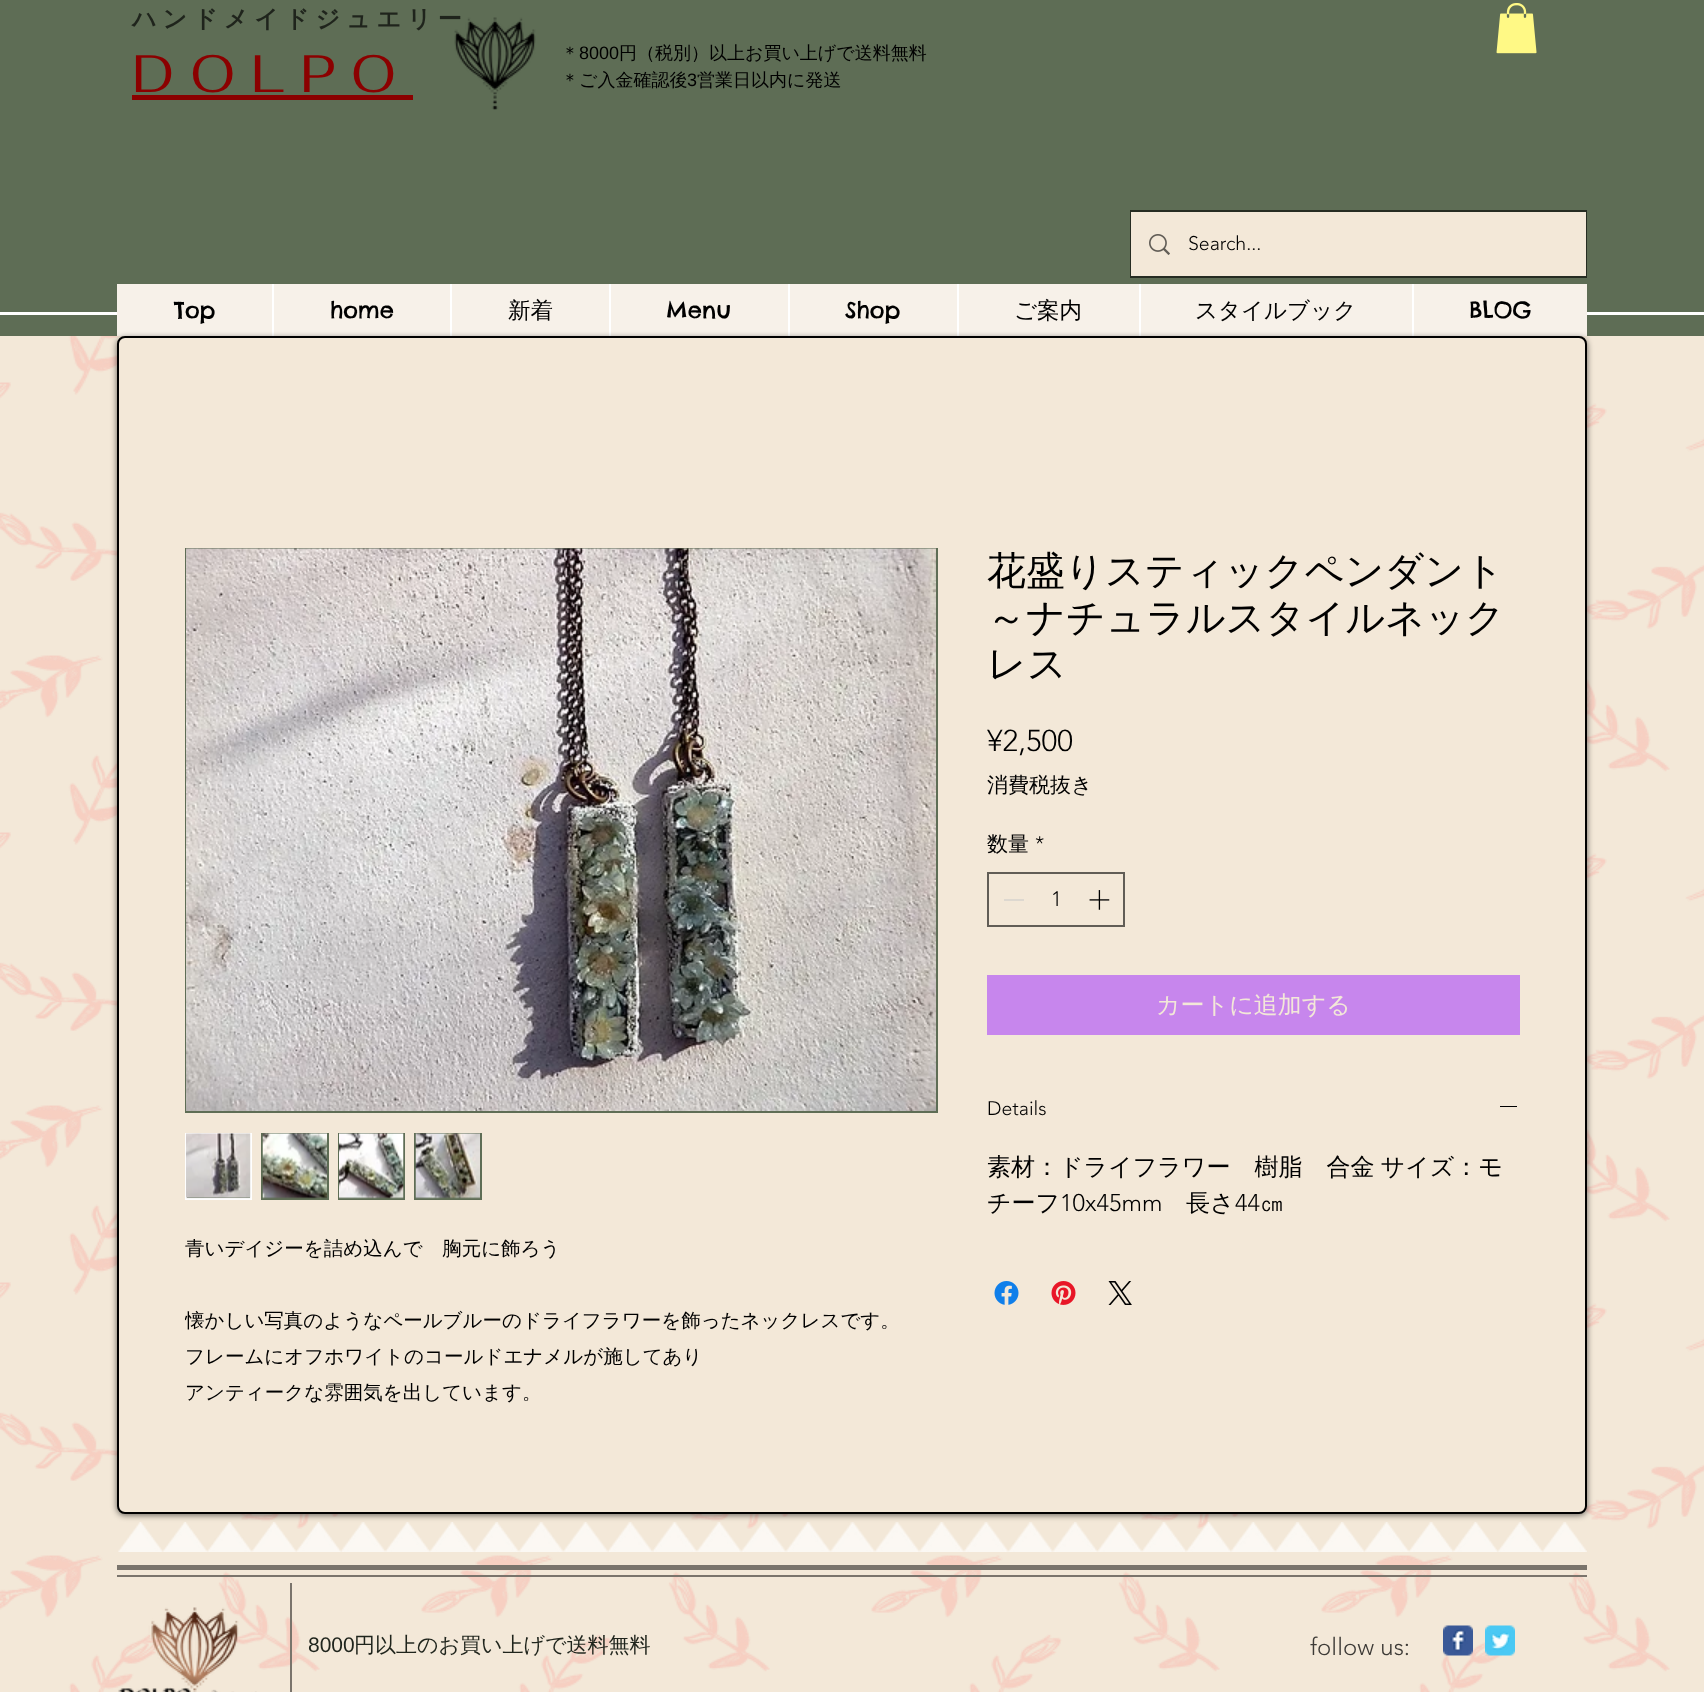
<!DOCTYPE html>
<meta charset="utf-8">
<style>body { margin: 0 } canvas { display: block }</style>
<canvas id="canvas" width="1704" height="1692"></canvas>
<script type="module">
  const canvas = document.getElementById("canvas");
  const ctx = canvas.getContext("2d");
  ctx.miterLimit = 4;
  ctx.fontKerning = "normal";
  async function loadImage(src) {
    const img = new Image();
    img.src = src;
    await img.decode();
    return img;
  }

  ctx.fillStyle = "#f3e8d8";
  ctx.fillRect(0, 0, 1704, 1692);
  ctx.fillStyle = "#5e6d55";
  ctx.fillRect(0, 0, 1704, 336);
  ctx.fillStyle = "#ffffff";
  ctx.fillRect(0, 312, 1704, 3);
  ctx.letterSpacing = "6px";
  ctx.font = "bold 24px WenQuanYi Zen Hei";
  ctx.fillStyle = "#1f241c";
  ctx.fillText("ハンドメイドジュエリー", 132, 27);
  ctx.drawImage(await loadImage("img1.png"), 454, 17, 82, 93);
  ctx.letterSpacing = "0px";
  ctx.font = "500 18px WenQuanYi Zen Hei";
  ctx.fillStyle = "#000000";
  ctx.fillText("＊", 561, 59);
  ctx.font = "18px Liberation Sans";
  ctx.fillText("8000", 579, 59);
  ctx.font = "500 18px WenQuanYi Zen Hei";
  ctx.fillText("円（税別）以上お買い上げで送料無料", 619, 59);
  ctx.fillText("＊ご入金確認後", 561, 86);
  ctx.font = "18px Liberation Sans";
  ctx.fillText("3", 687, 86);
  ctx.font = "500 18px WenQuanYi Zen Hei";
  ctx.fillText("営業日以内に発送", 697, 86);
  ctx.drawImage(await loadImage("img2.png"), 1496, 3, 41, 51);
  ctx.letterSpacing = "15.75px";
  ctx.font = "52.5px Fahkwang";
  ctx.fillStyle = "#8b0000";
  ctx.fillText("DOLPO", 132, 92);
  ctx.fillRect(132, 95, 281, 5);
  ctx.strokeStyle = "#262c22";
  ctx.lineWidth = 2;
  ctx.strokeRect(1131, 211, 455, 66);
  ctx.fillStyle = "#f3e8d8";
  ctx.fillRect(1131, 212, 455, 64);
  ctx.drawImage(await loadImage("img3.png"), 1149, 234, 21, 21);
  ctx.letterSpacing = "0px";
  ctx.font = "300 19.5px 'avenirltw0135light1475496'";
  ctx.fillStyle = "#000000";
  ctx.fillText("Search...", 1188, 250);
  ctx.fillStyle = "#f7f1e9";
  ctx.fillRect(117, 284, 1470, 52);
  ctx.font = "22.5px Chelsea Market";
  ctx.fillStyle = "#000000";
  ctx.fillText("Top", 174, 318);
  ctx.fillStyle = "#ffffff";
  ctx.fillRect(272, 284, 2, 52);
  ctx.fillStyle = "#000000";
  ctx.fillText("home", 330, 318);
  ctx.fillStyle = "#ffffff";
  ctx.fillRect(450, 284, 2, 52);
  ctx.font = "500 22.5px WenQuanYi Zen Hei";
  ctx.fillStyle = "#000000";
  ctx.fillText("新着", 508, 318);
  ctx.fillStyle = "#ffffff";
  ctx.fillRect(609, 284, 2, 52);
  ctx.font = "22.5px Chelsea Market";
  ctx.fillStyle = "#000000";
  ctx.fillText("Menu", 666, 318);
  ctx.fillStyle = "#ffffff";
  ctx.fillRect(788, 284, 2, 52);
  ctx.fillStyle = "#000000";
  ctx.fillText("Shop", 845, 318);
  ctx.fillStyle = "#ffffff";
  ctx.fillRect(957, 284, 2, 52);
  ctx.font = "500 22.5px WenQuanYi Zen Hei";
  ctx.fillStyle = "#000000";
  ctx.fillText("ご案内", 1014, 318);
  ctx.fillStyle = "#ffffff";
  ctx.fillRect(1139, 284, 2, 52);
  ctx.fillStyle = "#000000";
  ctx.fillText("スタイルブック", 1195, 318);
  ctx.fillStyle = "#ffffff";
  ctx.fillRect(1412, 284, 2, 52);
  ctx.font = "22.5px Chelsea Market";
  ctx.fillStyle = "#000000";
  ctx.fillText("BLOG", 1469, 318);
  ctx.drawImage(await loadImage("img17.png"), 0, 336, 1704, 1356);
  ctx.fillStyle = "rgba(0, 0, 0, 0.6)";
  ctx.filter = "blur(3px)";
  ctx.beginPath();
  ctx.roundRect(117, 338, 1470, 1177, 8);
  ctx.fill();
  ctx.filter = "none";
  ctx.fillStyle = "#f3e8d8";
  ctx.beginPath();
  ctx.roundRect(118, 337, 1468, 1176, 7);
  ctx.fill();
  ctx.strokeStyle = "#000000";
  ctx.stroke();
  ctx.font = "500 39px WenQuanYi Zen Hei";
  ctx.fillStyle = "#000000";
  ctx.fillText("花盛りスティックペンダント", 987, 584);
  ctx.fillText("～ナチュラルスタイルネック", 987, 631);
  ctx.fillText("レス", 987, 677);
  ctx.font = "300 30px 'avenirltw0135light1475496'";
  ctx.fillText("¥2,500", 987, 751);
  ctx.font = "500 21px WenQuanYi Zen Hei";
  ctx.fillText("消費税抜き", 987, 792);
  ctx.fillText("数量", 987, 851);
  ctx.font = "300 21px 'avenirltw0135light1475496'";
  ctx.fillText("*", 1035, 851);
  ctx.strokeStyle = "#615d56";
  ctx.strokeRect(988, 873, 136, 53);
  ctx.fillStyle = "#ddd8d0";
  ctx.fillRect(1004, 899, 20, 2);
  ctx.fillStyle = "#000000";
  ctx.fillText("1", 1051, 906);
  ctx.drawImage(await loadImage("img4.png"), 1089, 890, 21, 20);
  ctx.fillStyle = "#c786ed";
  ctx.fillRect(987, 975, 533, 60);
  ctx.font = "500 24px WenQuanYi Zen Hei";
  ctx.fillStyle = "#f3e8d8";
  ctx.fillText("カートに追加する", 1156, 1013);
  ctx.font = "300 19.5px 'avenirltw0135light1475496'";
  ctx.fillStyle = "#000000";
  ctx.fillText("Details", 987, 1115);
  ctx.fillRect(1500, 1106, 17, 1);
  ctx.wordSpacing = "-1px";
  ctx.font = "500 24px WenQuanYi Zen Hei";
  ctx.fillText("素材：ドライフラワー　樹脂　合金 サイズ：モ", 987, 1175);
  ctx.wordSpacing = "0px";
  ctx.fillText("チーフ", 987, 1211);
  ctx.font = "300 24px 'avenirltw0135light1475496'";
  ctx.fillText("10x45mm", 1060, 1211);
  ctx.font = "500 24px WenQuanYi Zen Hei";
  ctx.fillText("長さ", 1186, 1211);
  ctx.font = "300 24px 'avenirltw0135light1475496'";
  ctx.fillText("44", 1235, 1211);
  ctx.font = "500 24px WenQuanYi Zen Hei";
  ctx.fillText("㎝", 1260, 1211);
  ctx.drawImage(await loadImage("img5.png"), 994, 1281, 25, 24);
  ctx.drawImage(await loadImage("img6.png"), 1051, 1281, 25, 24);
  ctx.drawImage(await loadImage("img7.png"), 1108, 1281, 24, 24);
  ctx.strokeStyle = "#5e6d55";
  ctx.strokeRect(186, 549, 751, 563);
  ctx.drawImage(await loadImage("img8.png"), 186, 548, 750, 563);
  ctx.fillStyle = "#5e6d55";
  ctx.fillRect(187, 1197, 63, 1);
  ctx.strokeStyle = "#ffffff";
  ctx.strokeRect(186, 1134, 65, 65);
  ctx.drawImage(await loadImage("img9.png"), 186, 1133, 65, 66);
  ctx.fillRect(261, 1133, 68, 67);
  ctx.drawImage(await loadImage("img10.png"), 262, 1133, 65, 66);
  ctx.fillRect(338, 1133, 67, 67);
  ctx.drawImage(await loadImage("img11.png"), 339, 1133, 65, 66);
  ctx.fillRect(414, 1133, 68, 67);
  ctx.drawImage(await loadImage("img12.png"), 415, 1133, 65, 66);
  ctx.font = "500 19.5px WenQuanYi Zen Hei";
  ctx.fillStyle = "#000000";
  ctx.fillText("青いデイジーを詰め込んで　胸元に飾ろう", 185, 1255);
  ctx.save();
  ctx.beginPath();
  ctx.rect(185, 1230, 715, 216);
  ctx.clip();
  ctx.fillText("懐かしい写真のようなペールブルーのドライフラワーを飾ったネックレスです。", 185, 1327);
  ctx.restore();
  ctx.fillText("フレームにオフホワイトのコールドエナメルが施してあり", 185, 1363);
  ctx.fillText("アンティークな雰囲気を出しています。", 185, 1399);
  ctx.drawImage(await loadImage("img13.png"), 118, 1522, 1469, 30);
  ctx.fillStyle = "#7a746c";
  ctx.fillRect(117, 1565, 1470, 5);
  ctx.fillRect(117, 1575, 1470, 2);
  ctx.drawImage(await loadImage("img14.png"), 118, 1607, 139, 85);
  ctx.fillRect(290, 1583, 2, 109);
  ctx.font = "21px Liberation Sans";
  ctx.fillStyle = "#1f241c";
  ctx.fillText("8000", 308, 1652);
  ctx.font = "500 21px WenQuanYi Zen Hei";
  ctx.fillText("円以上のお買い上げで送料無料", 354, 1652);
  ctx.font = "300 24px 'avenirltw0135light1475496'";
  ctx.fillStyle = "#3d3a36";
  ctx.fillText("follow us:", 1310, 1655);
  ctx.drawImage(await loadImage("img15.png"), 1443, 1625, 30, 31);
  ctx.drawImage(await loadImage("img16.png"), 1485, 1625, 30, 31);
</script>
